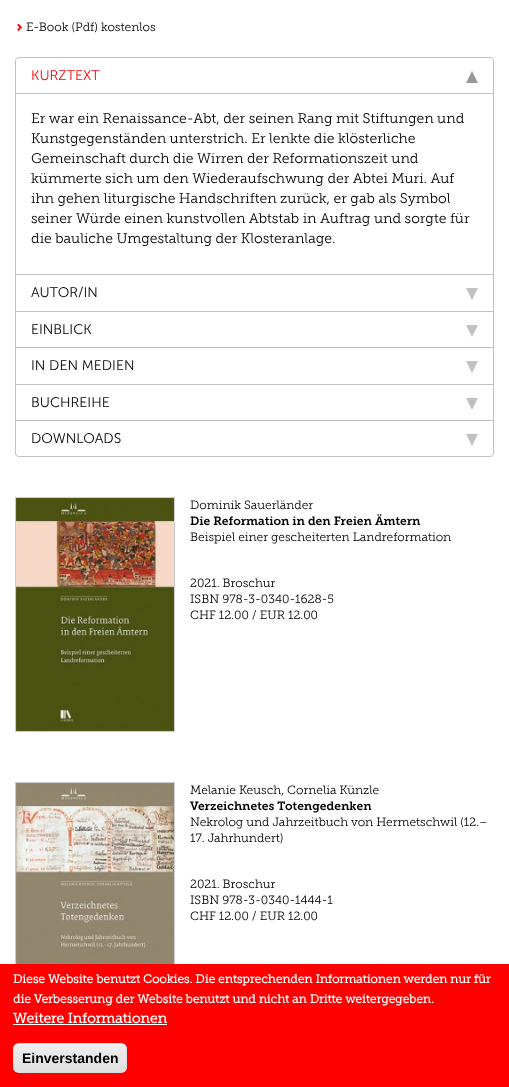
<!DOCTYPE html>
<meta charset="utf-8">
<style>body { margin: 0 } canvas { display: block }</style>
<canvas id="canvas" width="509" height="1087"></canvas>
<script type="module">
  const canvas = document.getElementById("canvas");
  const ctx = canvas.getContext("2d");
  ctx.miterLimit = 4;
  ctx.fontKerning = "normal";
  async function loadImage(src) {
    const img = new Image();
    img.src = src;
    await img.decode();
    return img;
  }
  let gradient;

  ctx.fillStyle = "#ffffff";
  ctx.fillRect(0, 0, 509, 1087);
  ctx.drawImage(await loadImage("img1.png"), 17, 23, 5, 8);
  ctx.font = "300 12px Museo Slab";
  ctx.fillStyle = "#000000";
  ctx.fillText("E-Book (Pdf) kostenlos", 26, 31);
  ctx.fillStyle = "#c1c1c1";
  ctx.beginPath();
  ctx.moveTo(19, 57);
  ctx.lineTo(490, 57);
  ctx.bezierCurveTo(492, 57, 494, 59, 494, 61);
  ctx.lineTo(494, 93);
  ctx.lineTo(15, 93);
  ctx.lineTo(15, 61);
  ctx.bezierCurveTo(15, 59, 17, 57, 19, 57);
  ctx.closePath();
  ctx.moveTo(19, 58);
  ctx.lineTo(490, 58);
  ctx.bezierCurveTo(492, 58, 493, 59, 493, 61);
  ctx.lineTo(493, 93);
  ctx.lineTo(16, 93);
  ctx.lineTo(16, 61);
  ctx.bezierCurveTo(16, 59, 17, 58, 19, 58);
  ctx.closePath();
  ctx.fill("evenodd");
  ctx.font = "300 14px Museo Sans";
  ctx.fillStyle = "#ff0000";
  ctx.fillText("KURZTEXT", 31, 80);
  ctx.fillStyle = "#9b9797";
  ctx.beginPath();
  ctx.moveTo(478, 83);
  ctx.lineTo(466, 83);
  ctx.lineTo(472, 71);
  ctx.closePath();
  ctx.fill();
  ctx.strokeStyle = "#c1c1c1";
  ctx.strokeRect(15.5, 93.5, 478, 181);
  ctx.font = "300 14px Museo Slab";
  ctx.fillStyle = "#000000";
  ctx.fillText("Er war ein Renaissance-Abt, der seinen Rang mit Stiftungen und", 31, 123);
  ctx.fillText("Kunstgegenständen unterstrich. Er lenkte die klösterliche", 31, 143);
  ctx.fillText("Gemeinschaft durch die Wirren der Reformationszeit und", 31, 163);
  ctx.fillText("kümmerte sich um den Wiederaufschwung der Abtei Muri. Auf", 31, 183);
  ctx.fillText("ihn gehen liturgische Handschriften zurück, er gab als Symbol", 31, 203);
  ctx.fillText("seiner Würde einen kunstvollen Abtstab in Auftrag und sorgte für", 31, 223);
  ctx.fillText("die bauliche Umgestaltung der Klosteranlage.", 31, 243);
  ctx.fillStyle = "#c1c1c1";
  ctx.fillRect(493, 275, 1, 146);
  ctx.fillRect(15, 311, 479, 1);
  ctx.fillRect(15, 275, 1, 37);
  ctx.font = "300 14px Museo Sans";
  ctx.fillStyle = "#000000";
  ctx.fillText("AUTOR/IN", 31, 297);
  ctx.fillStyle = "#c1c1c1";
  ctx.beginPath();
  ctx.moveTo(466, 288);
  ctx.lineTo(478, 288);
  ctx.lineTo(472, 300);
  ctx.closePath();
  ctx.moveTo(466, 325);
  ctx.lineTo(478, 325);
  ctx.lineTo(472, 337);
  ctx.closePath();
  ctx.fill();
  ctx.fillRect(15, 347, 479, 1);
  ctx.fillRect(15, 312, 1, 36);
  ctx.fillStyle = "#000000";
  ctx.fillText("EINBLICK", 31, 334);
  ctx.fillStyle = "#c1c1c1";
  ctx.fillRect(15, 384, 479, 1);
  ctx.fillRect(15, 348, 1, 37);
  ctx.fillStyle = "#000000";
  ctx.fillText("IN DEN MEDIEN", 31, 370);
  ctx.fillStyle = "#c1c1c1";
  ctx.beginPath();
  ctx.moveTo(466, 361);
  ctx.lineTo(478, 361);
  ctx.lineTo(472, 373);
  ctx.closePath();
  ctx.moveTo(466, 398);
  ctx.lineTo(478, 398);
  ctx.lineTo(472, 410);
  ctx.closePath();
  ctx.fill();
  ctx.fillRect(15, 420, 479, 1);
  ctx.fillRect(15, 385, 1, 36);
  ctx.fillStyle = "#000000";
  ctx.fillText("BUCHREIHE", 31, 407);
  ctx.fillStyle = "#c1c1c1";
  ctx.beginPath();
  ctx.moveTo(15, 421);
  ctx.lineTo(494, 421);
  ctx.lineTo(494, 453);
  ctx.bezierCurveTo(494, 455, 492, 457, 490, 457);
  ctx.lineTo(19, 457);
  ctx.bezierCurveTo(17, 457, 15, 455, 15, 453);
  ctx.closePath();
  ctx.moveTo(16, 421);
  ctx.lineTo(493, 421);
  ctx.lineTo(493, 453);
  ctx.bezierCurveTo(493, 455, 492, 456, 490, 456);
  ctx.lineTo(19, 456);
  ctx.bezierCurveTo(17, 456, 16, 455, 16, 453);
  ctx.closePath();
  ctx.fill("evenodd");
  ctx.fillStyle = "#000000";
  ctx.fillText("DOWNLOADS", 31, 443);
  ctx.fillStyle = "#c1c1c1";
  ctx.beginPath();
  ctx.moveTo(466, 434);
  ctx.lineTo(478, 434);
  ctx.lineTo(472, 446);
  ctx.closePath();
  ctx.fill();
  ctx.strokeStyle = "#cccccc";
  ctx.strokeRect(15.5, 497.5, 159, 234);
  ctx.drawImage(await loadImage("img2.png"), 16, 498, 158, 233);
  ctx.font = "300 12px Museo Slab";
  ctx.fillStyle = "#000000";
  ctx.fillText("Dominik Sauerländer", 190, 509);
  ctx.font = "600 12px Museo Slab";
  ctx.fillText("Die Reformation in den Freien Ämtern", 190, 525);
  ctx.font = "300 12px Museo Slab";
  ctx.fillText("Beispiel einer gescheiterten Landreformation", 190, 541);
  ctx.fillText("2021. Broschur", 190, 587);
  ctx.fillText("ISBN 978-3-0340-1628-5", 190, 603);
  ctx.fillText("CHF 12.00 / EUR 12.00", 190, 619);
  ctx.strokeRect(15.5, 782.5, 159, 234);
  ctx.drawImage(await loadImage("img3.png"), 16, 783, 158, 181);
  ctx.fillText("Melanie Keusch, Cornelia Künzle", 190, 794);
  ctx.font = "600 12px Museo Slab";
  ctx.fillText("Verzeichnetes Totengedenken", 190, 810);
  ctx.font = "300 12px Museo Slab";
  ctx.fillText("Nekrolog und Jahrzeitbuch von Hermetschwil (12.–", 190, 826);
  ctx.fillText("17. Jahrhundert)", 190, 842);
  ctx.fillText("2021. Broschur", 190, 888);
  ctx.fillText("ISBN 978-3-0340-1444-1", 190, 904);
  ctx.fillText("CHF 12.00 / EUR 12.00", 190, 920);
  ctx.fillStyle = "#ff0000";
  ctx.fillRect(0, 964, 509, 123);
  ctx.font = "bold 12px Museo Slab";
  ctx.fillStyle = "#ffffff";
  ctx.fillText("Diese Website benutzt Cookies. Die entsprechenden Informationen werden nur für", 13, 983);
  ctx.fillText("die Verbesserung der Website benutzt und nicht an Dritte weitergegeben.", 13, 1003);
  ctx.font = "bold 14px Museo Slab";
  ctx.fillText("Weitere Informationen", 13, 1023);
  ctx.fillRect(13, 1024, 154, 1);
  ctx.save();
  ctx.beginPath();
  ctx.roundRect(13, 1043, 114, 30, 6);
  ctx.clip();
  gradient = ctx.createLinearGradient(70, 1044, 70, 1072);
  gradient.addColorStop(0.05, "#ededed");
  gradient.addColorStop(1, "#dfdfdf");
  ctx.fillStyle = gradient;
  ctx.fillRect(13, 1044, 114, 28);
  ctx.restore();
  ctx.beginPath();
  ctx.moveTo(19, 1045);
  ctx.lineTo(121, 1045);
  ctx.bezierCurveTo(124, 1045, 126, 1047, 126, 1050);
  ctx.bezierCurveTo(126, 1040, 109, 1044, 104, 1044);
  ctx.lineTo(36, 1044);
  ctx.bezierCurveTo(31, 1044, 14, 1040, 14, 1050);
  ctx.bezierCurveTo(14, 1047, 16, 1045, 19, 1045);
  ctx.closePath();
  ctx.fill();
  ctx.beginPath();
  ctx.roundRect(13.5, 1043.5, 113, 29, 5.5);
  ctx.strokeStyle = "#dcdcdc";
  ctx.stroke();
  ctx.font = "bold 14px Liberation Sans";
  ctx.fillStyle = "#000000";
  ctx.fillText("Einverstanden", 22, 1063);
</script>
